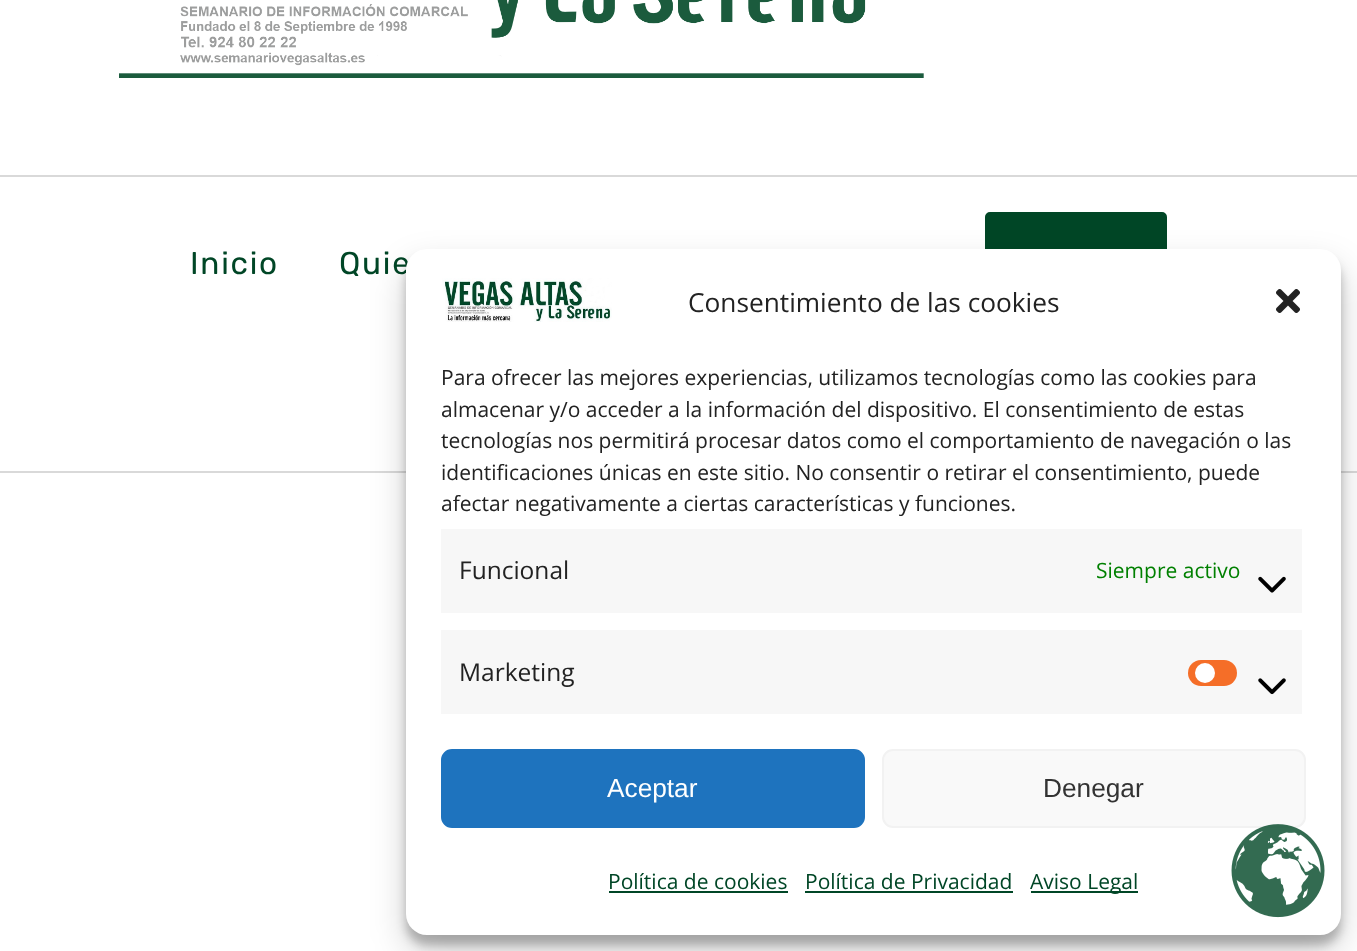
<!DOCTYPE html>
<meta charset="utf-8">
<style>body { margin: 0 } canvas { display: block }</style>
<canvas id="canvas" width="1357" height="951"></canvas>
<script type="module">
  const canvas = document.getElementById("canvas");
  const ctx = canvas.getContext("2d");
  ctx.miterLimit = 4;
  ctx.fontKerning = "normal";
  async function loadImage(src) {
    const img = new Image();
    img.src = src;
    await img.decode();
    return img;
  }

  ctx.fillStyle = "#ffffff";
  ctx.fillRect(0, 0, 1357, 951);
  ctx.drawImage(await loadImage("img1.png"), 119, 0, 805, 78);
  ctx.fillStyle = "#d9d9d9";
  ctx.fillRect(0, 175, 1357, 2);
  ctx.letterSpacing = "1.75px";
  ctx.font = "31.5px Rubik";
  ctx.fillStyle = "#004626";
  ctx.fillText("Inicio", 190, 274);
  ctx.fillText("Quie", 339, 274);
  ctx.beginPath();
  ctx.roundRect(987, 214, 178, 92, 3);
  ctx.fill();
  ctx.strokeStyle = "#004626";
  ctx.lineWidth = 4;
  ctx.stroke();
  ctx.fillStyle = "#d9d9d9";
  ctx.fillRect(0, 471, 1357, 2);
  ctx.fillStyle = "rgba(0, 0, 0, 0.23)";
  ctx.filter = "blur(5px)";
  ctx.beginPath();
  ctx.roundRect(406, 259, 935, 686, 21);
  ctx.fill();
  ctx.filter = "none";
  ctx.fillStyle = "rgba(0, 0, 0, 0.19)";
  ctx.filter = "blur(17.5px)";
  ctx.beginPath();
  ctx.roundRect(406, 266, 935, 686, 21);
  ctx.fill();
  ctx.filter = "none";
  ctx.fillStyle = "#ffffff";
  ctx.beginPath();
  ctx.roundRect(406, 249, 935, 686, 21);
  ctx.fill();
  ctx.drawImage(await loadImage("img2.png"), 442, 278, 170, 44);
  ctx.letterSpacing = "0px";
  ctx.font = "26.25px Open Sans";
  ctx.fillStyle = "#222222";
  ctx.fillText("Consentimiento de las cookies", 688, 312);
  ctx.drawImage(await loadImage("img3.png"), 1276, 289, 24, 24);
  ctx.font = "21px Open Sans";
  ctx.fillText("Para ofrecer las mejores experiencias, utilizamos tecnologías como las cookies para", 441, 385);
  ctx.fillText("almacenar y/o acceder a la información del dispositivo. El consentimiento de estas", 441, 417);
  ctx.fillText("tecnologías nos permitirá procesar datos como el comportamiento de navegación o las", 441, 448);
  ctx.fillText("identificaciones únicas en este sitio. No consentir o retirar el consentimiento, puede", 441, 480);
  ctx.fillText("afectar negativamente a ciertas características y funciones.", 441, 511);
  ctx.fillStyle = "#f7f7f7";
  ctx.fillRect(441, 529, 861, 84);
  ctx.font = "24.5px Open Sans";
  ctx.fillStyle = "#222222";
  ctx.fillText("Funcional", 459, 579);
  ctx.font = "21px Open Sans";
  ctx.fillStyle = "#008000";
  ctx.fillText("Siempre activo", 1096, 578);
  ctx.drawImage(await loadImage("img4.png"), 1258, 576, 28, 17);
  ctx.fillStyle = "#f7f7f7";
  ctx.fillRect(441, 630, 861, 84);
  ctx.font = "24.5px Open Sans";
  ctx.fillStyle = "#222222";
  ctx.fillText("Marketing", 459, 681);
  ctx.fillStyle = "#f56e28";
  ctx.beginPath();
  ctx.roundRect(1188, 660, 49, 26, 13);
  ctx.fill();
  ctx.fillStyle = "#ffffff";
  ctx.beginPath();
  ctx.arc(1205, 673, 10, 0, Math.PI * 2);
  ctx.fill();
  ctx.drawImage(await loadImage("img5.png"), 1258, 678, 28, 17);
  ctx.fillStyle = "#1e73be";
  ctx.beginPath();
  ctx.roundRect(442, 750, 422, 77, 10);
  ctx.fill();
  ctx.strokeStyle = "#1e73be";
  ctx.lineWidth = 2;
  ctx.stroke();
  ctx.font = "26.25px Liberation Sans";
  ctx.fillStyle = "#ffffff";
  ctx.fillText("Aceptar", 607, 797);
  ctx.fillStyle = "#f9f9f9";
  ctx.beginPath();
  ctx.roundRect(883, 750, 422, 77, 10);
  ctx.fill();
  ctx.strokeStyle = "#f2f2f2";
  ctx.stroke();
  ctx.fillStyle = "#333333";
  ctx.fillText("Denegar", 1043, 797);
  ctx.font = "21px Open Sans";
  ctx.fillStyle = "#004626";
  ctx.fillText("Política de cookies", 608, 889);
  ctx.fillRect(609, 891, 179, 2);
  ctx.fillText("Política de Privacidad", 805, 889);
  ctx.fillRect(805, 891, 208, 2);
  ctx.fillRect(1031, 891, 107, 2);
  ctx.fillText("Aviso Legal", 1030, 889);
  ctx.drawImage(await loadImage("img6.png"), 1231, 824, 94, 94);
</script>
